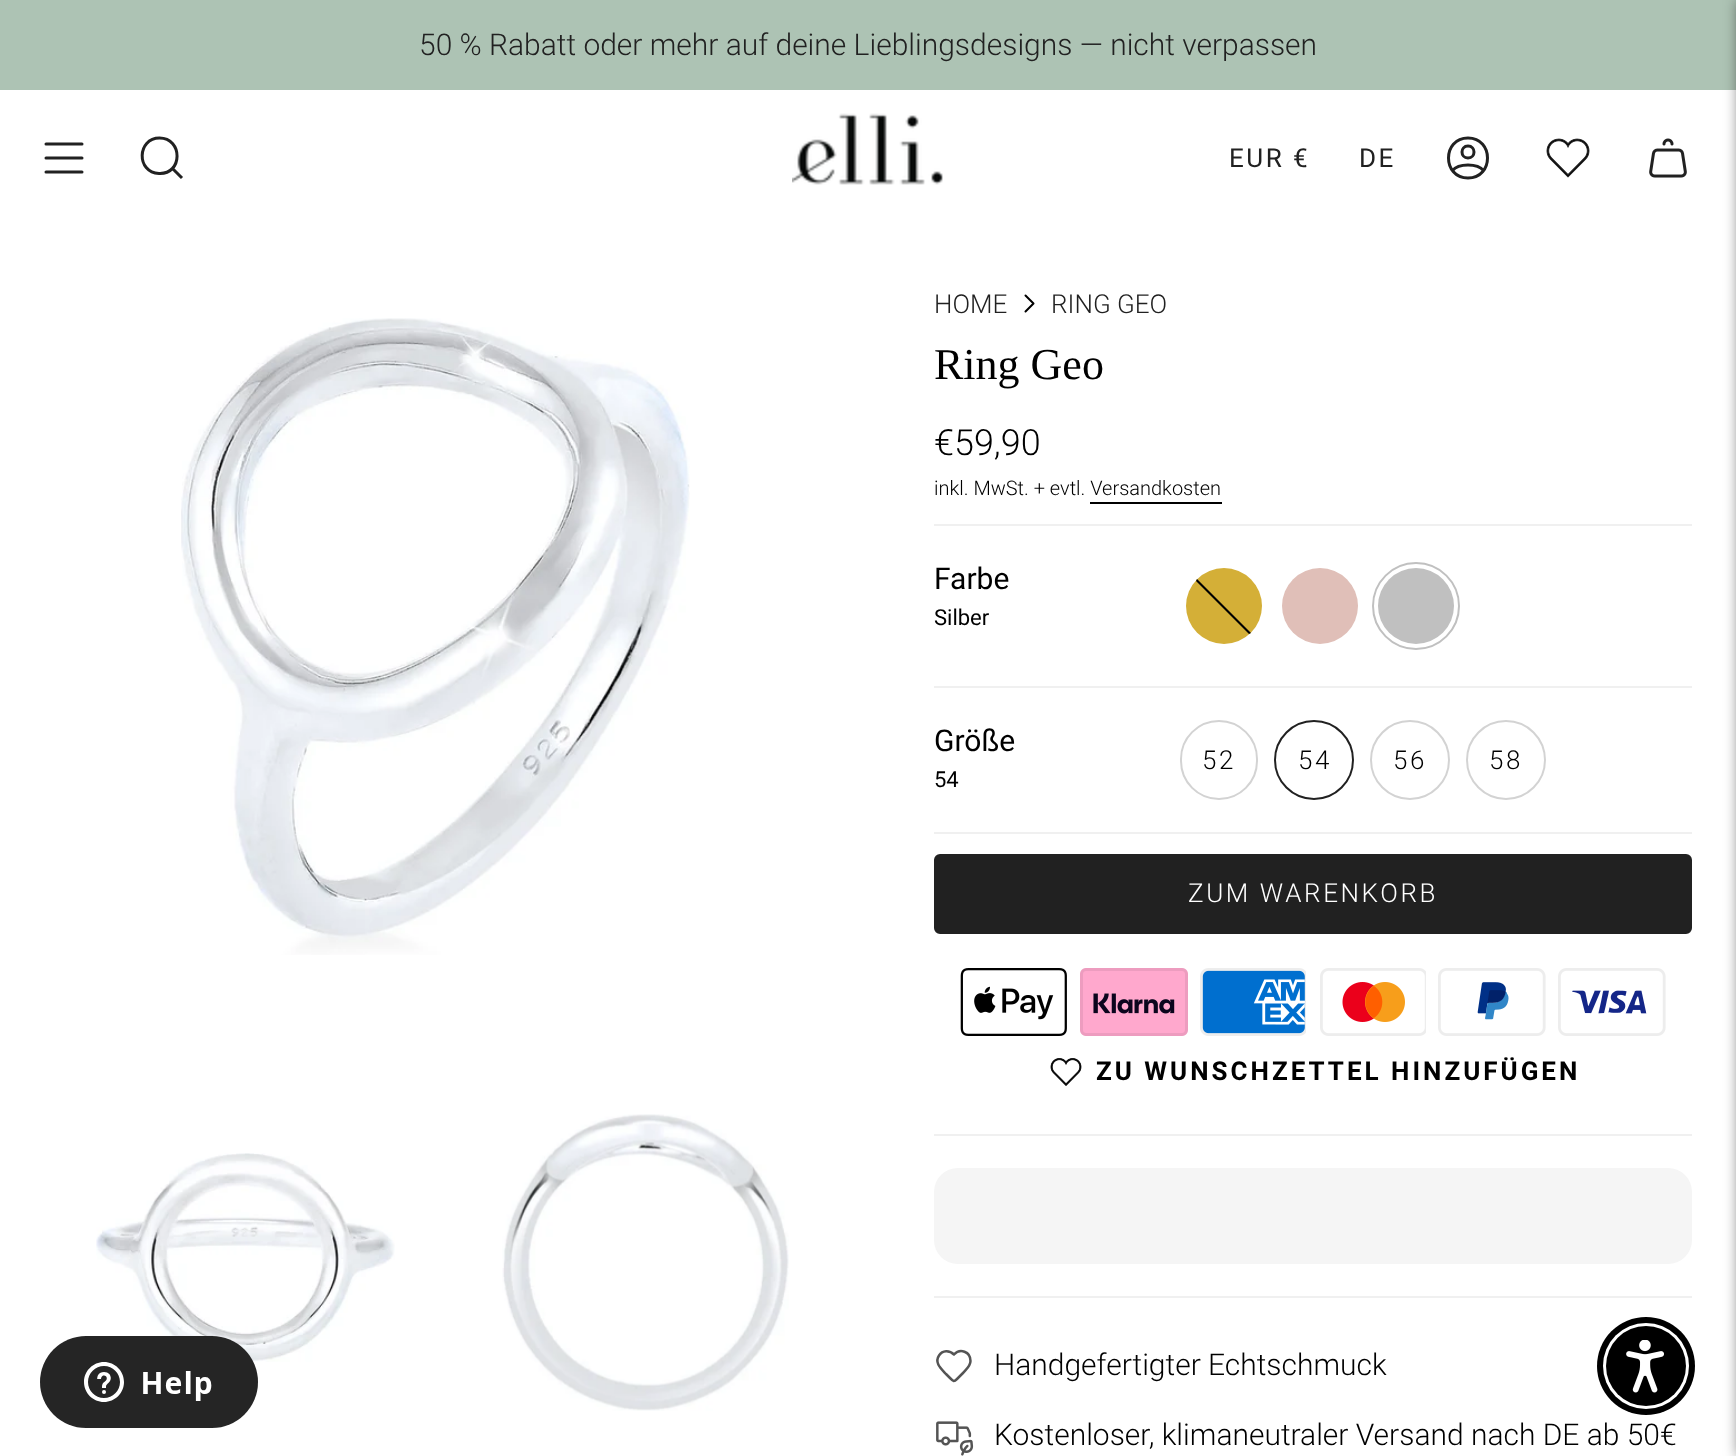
<!DOCTYPE html>
<meta charset="utf-8">
<style>body { margin: 0 } canvas { display: block }</style>
<canvas id="canvas" width="1736" height="1456"></canvas>
<script type="module">
  const canvas = document.getElementById("canvas");
  const ctx = canvas.getContext("2d");
  ctx.miterLimit = 4;
  ctx.fontKerning = "normal";
  async function loadImage(src) {
    const img = new Image();
    img.src = src;
    await img.decode();
    return img;
  }

  ctx.fillStyle = "#ffffff";
  ctx.fillRect(0, 0, 1736, 1456);
  ctx.fillStyle = "#adc3b4";
  ctx.fillRect(0, 0, 1736, 90);
  ctx.font = "300 30px Roboto";
  ctx.fillStyle = "#212121";
  ctx.fillText("50 % Rabatt oder mehr auf deine Lieblingsdesigns — nicht verpassen", 419, 55);
  ctx.beginPath();
  ctx.moveTo(46, 144);
  ctx.lineTo(82, 144);
  ctx.moveTo(46, 158);
  ctx.lineTo(82, 158);
  ctx.moveTo(46, 172);
  ctx.lineTo(82, 172);
  ctx.strokeStyle = "#212121";
  ctx.lineWidth = 3;
  ctx.lineCap = "round";
  ctx.lineJoin = "round";
  ctx.stroke();
  ctx.beginPath();
  ctx.moveTo(159.5, 138);
  ctx.bezierCurveTo(183, 138, 183, 174.5, 159, 173.5);
  ctx.bezierCurveTo(136, 172.5, 137, 138, 159.5, 138);
  ctx.closePath();
  ctx.moveTo(172, 168);
  ctx.lineTo(182, 178);
  ctx.lineCap = "butt";
  ctx.lineJoin = "miter";
  ctx.stroke();
  ctx.drawImage(await loadImage("img1.png"), 792, 113, 151, 72);
  ctx.letterSpacing = "2.5px";
  ctx.font = "26px Roboto";
  ctx.fillText("EUR €", 1229, 167);
  ctx.fillText("DE", 1359, 167);
  ctx.beginPath();
  ctx.moveTo(1468, 138);
  ctx.bezierCurveTo(1442, 138, 1442, 178, 1468, 178);
  ctx.bezierCurveTo(1494, 178, 1494, 138, 1468, 138);
  ctx.closePath();
  ctx.moveTo(1452.5, 170.5);
  ctx.bezierCurveTo(1458.5, 163, 1477.5, 163, 1483.5, 170.5);
  ctx.moveTo(1468, 158);
  ctx.bezierCurveTo(1476, 158, 1476, 146, 1468, 146);
  ctx.bezierCurveTo(1460, 146, 1460, 158, 1468, 158);
  ctx.closePath();
  ctx.lineCap = "round";
  ctx.lineJoin = "round";
  ctx.stroke();
  ctx.drawImage(await loadImage("img2.png"), 1546, 138, 44, 40);
  ctx.drawImage(await loadImage("img3.png"), 1649, 138, 38, 40);
  ctx.drawImage(await loadImage("img4.png"), 181, 318, 509, 637);
  ctx.drawImage(await loadImage("img5.png"), 96, 1153, 299, 209);
  ctx.drawImage(await loadImage("img6.png"), 502, 1114, 287, 297);
  ctx.letterSpacing = "0px";
  ctx.font = "300 26px Roboto";
  ctx.fillText("HOME", 934, 313);
  ctx.beginPath();
  ctx.moveTo(1025.5, 311.5);
  ctx.lineTo(1033.5, 303.5);
  ctx.lineTo(1025.5, 295.5);
  ctx.strokeStyle = "#000000";
  ctx.lineWidth = 2;
  ctx.stroke();
  ctx.fillText("RING GEO", 1051, 313);
  ctx.font = "44px Liberation Serif";
  ctx.fillStyle = "#000000";
  ctx.fillText("Ring Geo", 934, 379);
  ctx.font = "300 36px Roboto";
  ctx.fillText("€59,90", 934, 455);
  ctx.font = "300 20px Roboto";
  ctx.fillText("inkl. MwSt. + evtl. Versandkosten", 934, 495);
  ctx.fillRect(1090, 502, 132, 2);
  ctx.fillStyle = "#f0f0f0";
  ctx.fillRect(934, 524, 758, 2);
  ctx.fillRect(934, 832, 758, 2);
  ctx.fillRect(934, 686, 758, 2);
  ctx.font = "30px Roboto";
  ctx.fillStyle = "#000000";
  ctx.fillText("Farbe", 934, 589);
  ctx.font = "22px Roboto";
  ctx.fillText("Silber", 934, 625);
  ctx.fillStyle = "#d4af37";
  ctx.beginPath();
  ctx.arc(1224, 606, 38, 0, Math.PI * 2);
  ctx.fill();
  ctx.fillStyle = "#000000";
  ctx.beginPath();
  ctx.moveTo(1196, 581);
  ctx.lineTo(1197, 579);
  ctx.lineTo(1251, 633);
  ctx.lineTo(1249, 634);
  ctx.closePath();
  ctx.fill();
  ctx.fillStyle = "#e0bfb8";
  ctx.beginPath();
  ctx.arc(1320, 606, 38, 0, Math.PI * 2);
  ctx.fill();
  ctx.fillStyle = "#c0c0c0";
  ctx.beginPath();
  ctx.arc(1416, 606, 38, 0, Math.PI * 2);
  ctx.fill();
  ctx.beginPath();
  ctx.arc(1416, 606, 43, 0, Math.PI * 2);
  ctx.strokeStyle = "#c0c0c0";
  ctx.stroke();
  ctx.font = "30px Roboto";
  ctx.fillStyle = "#000000";
  ctx.fillText("Größe", 934, 751);
  ctx.font = "22px Roboto";
  ctx.fillText("54", 934, 787);
  ctx.beginPath();
  ctx.roundRect(1181, 721, 76, 78, 38);
  ctx.strokeStyle = "#d3d3d3";
  ctx.lineJoin = "miter";
  ctx.stroke();
  ctx.letterSpacing = "2.6px";
  ctx.font = "300 26px Roboto";
  ctx.fillText("52", 1202, 769);
  ctx.beginPath();
  ctx.arc(1314, 760, 39, 0, Math.PI * 2);
  ctx.strokeStyle = "#212121";
  ctx.stroke();
  ctx.fillText("54", 1298, 769);
  ctx.beginPath();
  ctx.arc(1410, 760, 39, 0, Math.PI * 2);
  ctx.strokeStyle = "#d3d3d3";
  ctx.stroke();
  ctx.fillText("56", 1393, 769);
  ctx.beginPath();
  ctx.arc(1506, 760, 39, 0, Math.PI * 2);
  ctx.stroke();
  ctx.fillText("58", 1489, 769);
  ctx.fillStyle = "#212121";
  ctx.beginPath();
  ctx.roundRect(935, 855, 756, 78, 5);
  ctx.fill();
  ctx.strokeStyle = "#212121";
  ctx.stroke();
  ctx.fillStyle = "#ffffff";
  ctx.fillText("ZUM WARENKORB", 1188, 902);
  ctx.drawImage(await loadImage("img7.png"), 960, 968, 107, 68);
  ctx.drawImage(await loadImage("img8.png"), 1080, 968, 108, 68);
  ctx.drawImage(await loadImage("img9.png"), 1200, 968, 106, 68);
  ctx.drawImage(await loadImage("img10.png"), 1320, 968, 106, 68);
  ctx.drawImage(await loadImage("img11.png"), 1438, 968, 108, 68);
  ctx.drawImage(await loadImage("img12.png"), 1558, 968, 108, 68);
  ctx.drawImage(await loadImage("img13.png"), 1050, 1058, 32, 28);
  ctx.letterSpacing = "3px";
  ctx.font = "bold 26px Roboto";
  ctx.fillStyle = "#000000";
  ctx.fillText("ZU WUNSCHZETTEL HINZUFÜGEN", 1096, 1080);
  ctx.fillStyle = "#f0f0f0";
  ctx.fillRect(934, 1134, 758, 2);
  ctx.fillStyle = "#f5f5f5";
  ctx.beginPath();
  ctx.roundRect(934, 1168, 758, 96, 24);
  ctx.fill();
  ctx.fillStyle = "#f0f0f0";
  ctx.fillRect(934, 1296, 758, 2);
  ctx.beginPath();
  ctx.moveTo(970.5, 1361);
  ctx.bezierCurveTo(970.5, 1366, 966.5, 1369, 963.5, 1372.5);
  ctx.lineTo(957, 1379);
  ctx.bezierCurveTo(954, 1382, 953.5, 1381.5, 950, 1378);
  ctx.lineTo(946, 1374);
  ctx.bezierCurveTo(941.5, 1369, 934, 1363, 939, 1355.5);
  ctx.bezierCurveTo(942.5, 1350, 949.5, 1350, 954, 1354.5);
  ctx.bezierCurveTo(960, 1348, 970.5, 1351.5, 970.5, 1361);
  ctx.closePath();
  ctx.strokeStyle = "#545454";
  ctx.lineWidth = 2.5;
  ctx.lineCap = "butt";
  ctx.lineJoin = "round";
  ctx.stroke();
  ctx.letterSpacing = "0px";
  ctx.font = "300 30px Roboto";
  ctx.fillStyle = "#000000";
  ctx.fillText("Handgefertigter Echtschmuck", 994, 1375);
  ctx.drawImage(await loadImage("img14.png"), 936, 1421, 38, 35);
  ctx.fillText("Kostenloser, klimaneutraler Versand nach DE ab 50€", 994, 1445);
  ctx.fillStyle = "rgba(0, 0, 0, 0.5)";
  ctx.filter = "blur(7px)";
  ctx.beginPath();
  ctx.rect(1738, 0, 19, 1456);
  ctx.fill();
  ctx.filter = "none";
  ctx.drawImage(await loadImage("img15.png"), 40, 1336, 218, 92);
  ctx.fillStyle = "#000000";
  ctx.beginPath();
  ctx.arc(1646, 1366, 49, 0, Math.PI * 2);
  ctx.fill();
  ctx.fillStyle = "#ffffff";
  ctx.beginPath();
  ctx.arc(1646, 1366, 43, 0, Math.PI * 2);
  ctx.fill();
  ctx.fillStyle = "#000000";
  ctx.beginPath();
  ctx.arc(1646, 1366, 40, 0, Math.PI * 2);
  ctx.fill();
  ctx.drawImage(await loadImage("img16.png"), 1626, 1340, 38, 53);
</script>
